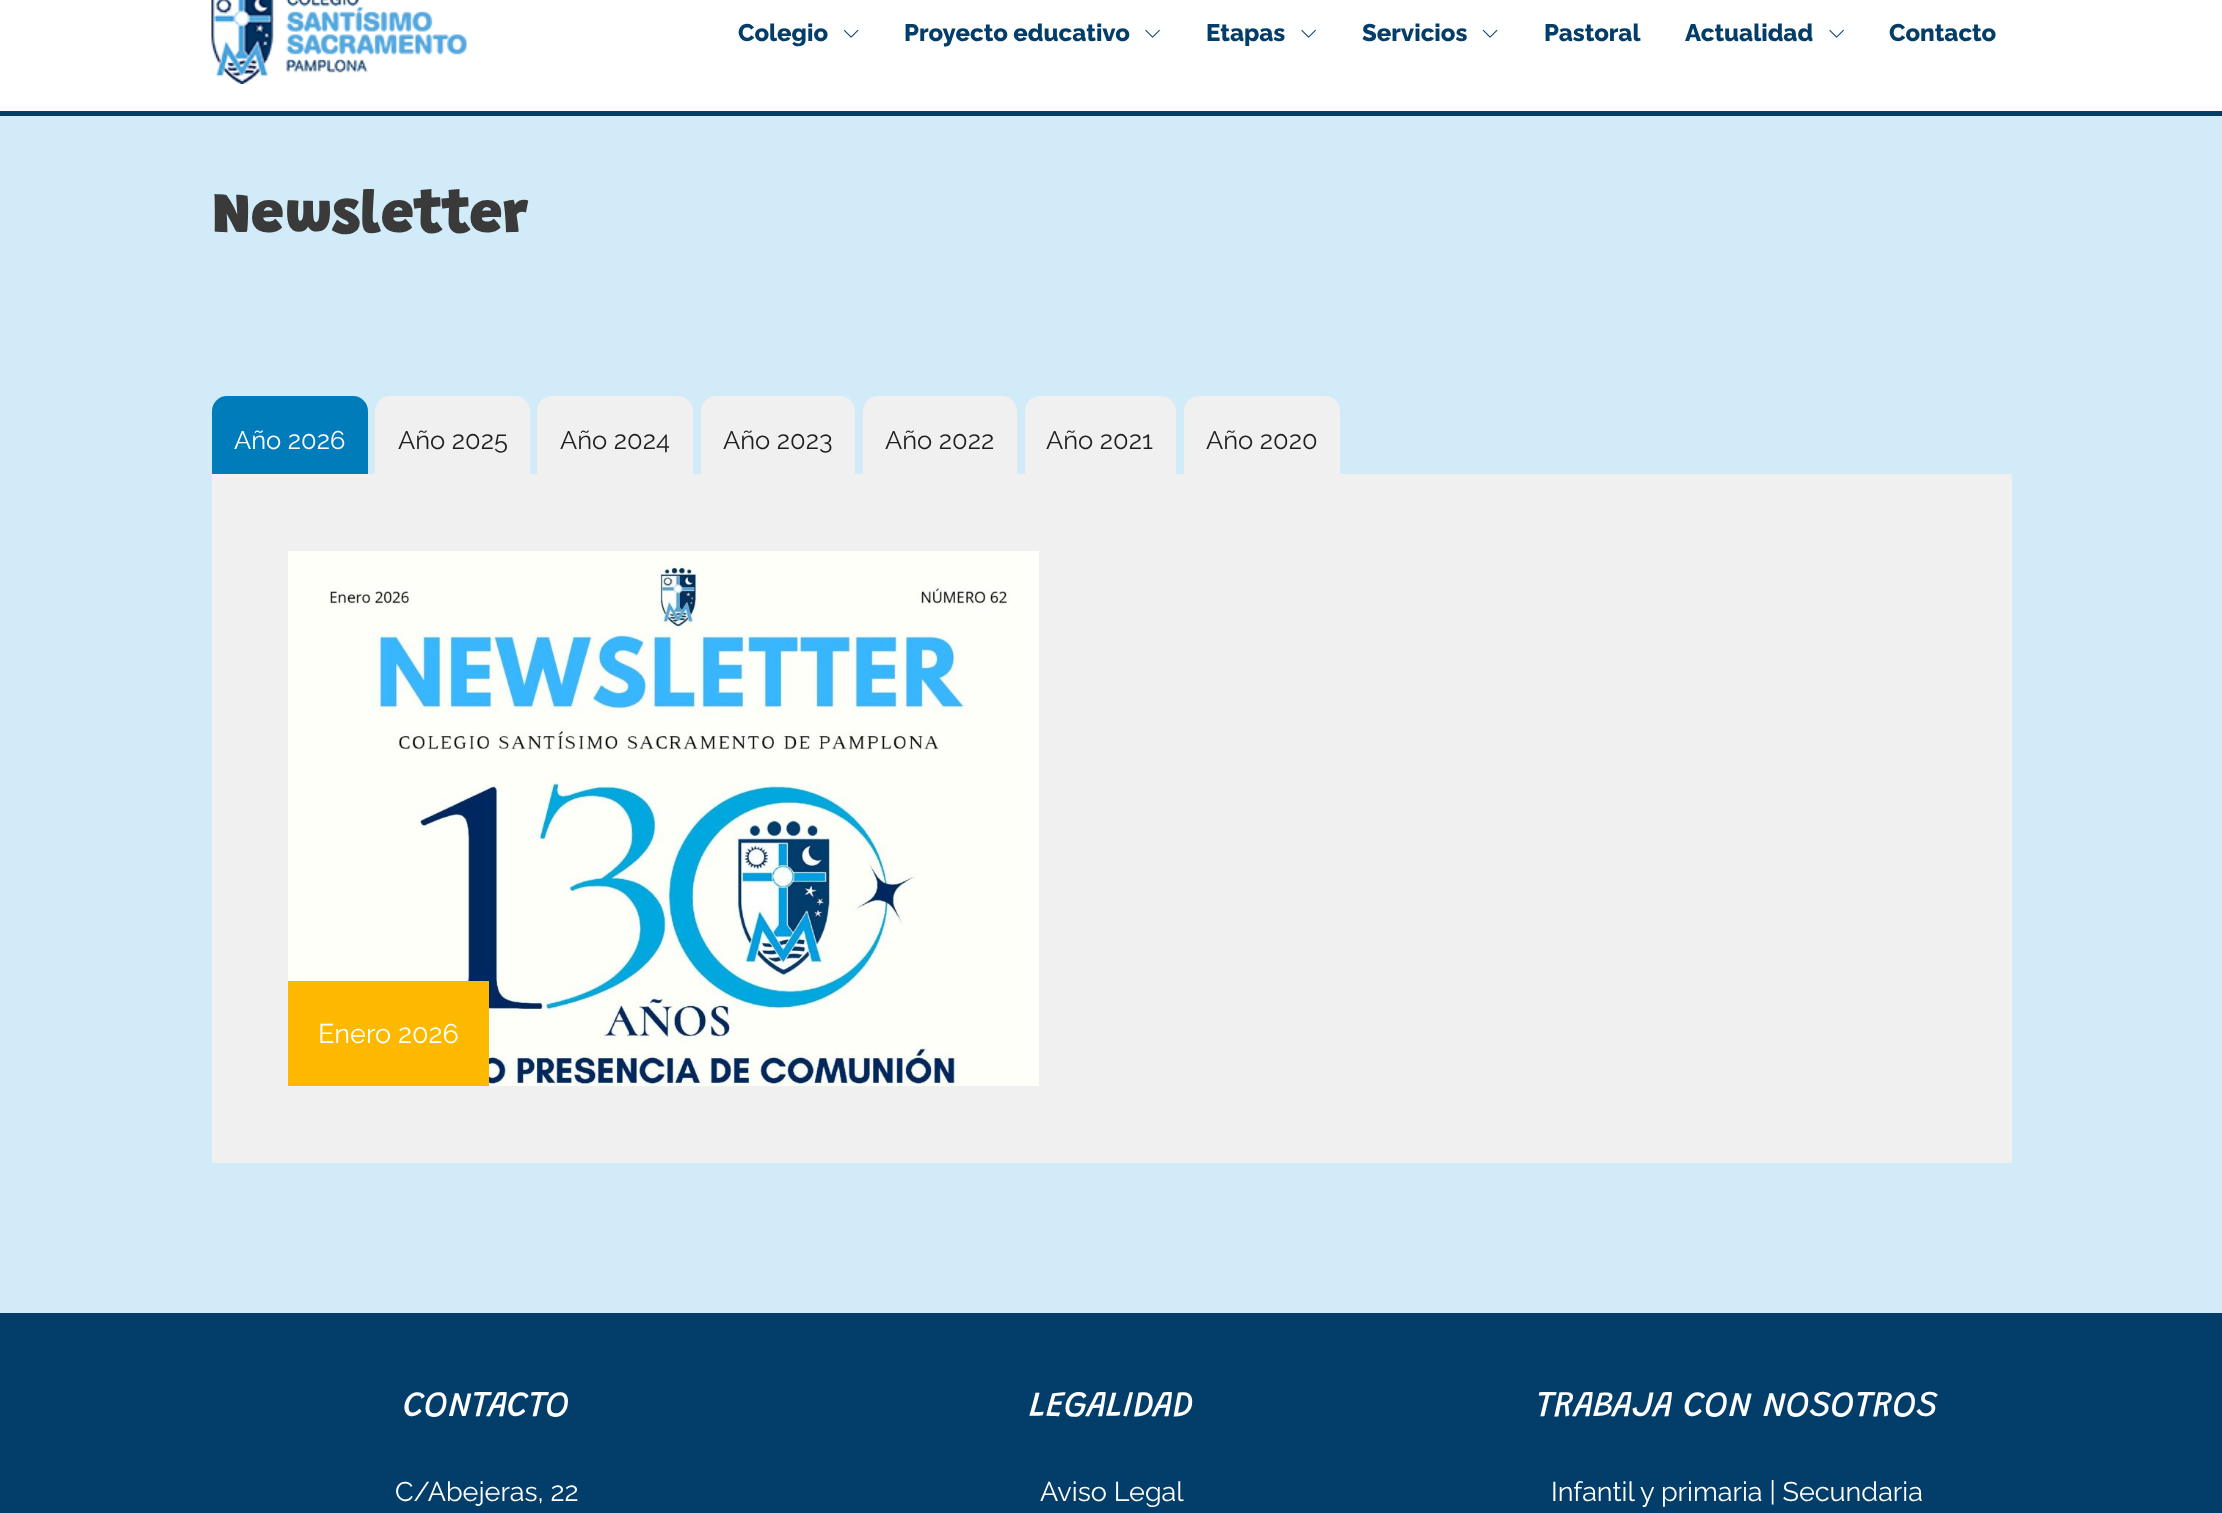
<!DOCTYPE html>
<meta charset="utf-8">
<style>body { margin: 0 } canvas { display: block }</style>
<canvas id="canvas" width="2222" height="1513"></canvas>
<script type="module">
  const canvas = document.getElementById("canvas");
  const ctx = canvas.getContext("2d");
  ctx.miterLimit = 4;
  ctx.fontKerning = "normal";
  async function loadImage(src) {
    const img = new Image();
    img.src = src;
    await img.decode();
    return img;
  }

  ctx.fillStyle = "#d1ebf8";
  ctx.fillRect(0, 0, 2222, 1513);
  ctx.fillStyle = "#ffffff";
  ctx.fillRect(0, 0, 2222, 111);
  ctx.fillStyle = "#033e6a";
  ctx.fillRect(0, 111, 2222, 5);
  ctx.drawImage(await loadImage("img1.png"), 211, 0, 256, 84);
  ctx.font = "800 24px Raleway";
  ctx.fillText("Colegio", 738, 41);
  ctx.drawImage(await loadImage("img2.png"), 843, 29, 16, 9);
  ctx.fillText("Proyecto educativo", 904, 41);
  ctx.drawImage(await loadImage("img3.png"), 1145, 29, 15, 9);
  ctx.fillText("Etapas", 1206, 41);
  ctx.drawImage(await loadImage("img3.png"), 1301, 29, 15, 9);
  ctx.fillText("Servicios", 1362, 41);
  ctx.drawImage(await loadImage("img2.png"), 1482, 29, 16, 9);
  ctx.fillText("Pastoral", 1544, 41);
  ctx.fillText("Actualidad", 1685, 41);
  ctx.drawImage(await loadImage("img3.png"), 1829, 29, 15, 9);
  ctx.fillText("Contacto", 1889, 41);
  ctx.font = "900 60px Grandstander";
  ctx.fillStyle = "#3a3a3a";
  ctx.fillText("Newsletter", 212, 232);
  ctx.fillStyle = "#007cba";
  ctx.beginPath();
  ctx.roundRect(212, 396, 156, 78, [15, 15, 0, 0]);
  ctx.fill();
  ctx.font = "25.5px Raleway";
  ctx.fillStyle = "#ffffff";
  ctx.fillText("Año 2026", 234, 449);
  ctx.fillStyle = "#f0f0f0";
  ctx.beginPath();
  ctx.roundRect(375, 396, 155, 78, [15, 15, 0, 0]);
  ctx.fill();
  ctx.fillStyle = "#1e1e1e";
  ctx.fillText("Año 2025", 398, 449);
  ctx.fillStyle = "#f0f0f0";
  ctx.beginPath();
  ctx.roundRect(537, 396, 156, 78, [15, 15, 0, 0]);
  ctx.fill();
  ctx.fillStyle = "#1e1e1e";
  ctx.fillText("Año 2024", 560, 449);
  ctx.fillStyle = "#f0f0f0";
  ctx.beginPath();
  ctx.roundRect(701, 396, 154, 78, [15, 15, 0, 0]);
  ctx.fill();
  ctx.fillStyle = "#1e1e1e";
  ctx.fillText("Año 2023", 723, 449);
  ctx.fillStyle = "#f0f0f0";
  ctx.beginPath();
  ctx.roundRect(863, 396, 154, 78, [15, 15, 0, 0]);
  ctx.fill();
  ctx.fillStyle = "#1e1e1e";
  ctx.fillText("Año 2022", 885, 449);
  ctx.fillStyle = "#f0f0f0";
  ctx.beginPath();
  ctx.roundRect(1025, 396, 151, 78, [15, 15, 0, 0]);
  ctx.fill();
  ctx.fillStyle = "#1e1e1e";
  ctx.fillText("Año 2021", 1046, 449);
  ctx.fillStyle = "#f0f0f0";
  ctx.beginPath();
  ctx.roundRect(1184, 396, 156, 78, [15, 15, 0, 0]);
  ctx.fill();
  ctx.fillStyle = "#1e1e1e";
  ctx.fillText("Año 2020", 1206, 449);
  ctx.fillStyle = "#f0f0f0";
  ctx.fillRect(212, 474, 1800, 689);
  ctx.drawImage(await loadImage("img4.png"), 288, 551, 751, 535);
  ctx.fillStyle = "#fcb900";
  ctx.fillRect(288, 981, 201, 105);
  ctx.font = "27px Raleway";
  ctx.fillStyle = "#ffffff";
  ctx.fillText("Enero 2026", 318, 1043);
  ctx.fillStyle = "#033e6a";
  ctx.fillRect(0, 1313, 2222, 200);
  ctx.font = "italic 36px Grandstander";
  ctx.fillStyle = "#ffffff";
  ctx.fillText("CONTACTO", 403, 1416);
  ctx.font = "27px Raleway";
  ctx.fillText("C/Abejeras, 22", 395, 1501);
  ctx.font = "italic 36px Grandstander";
  ctx.fillText("LEGALIDAD", 1029, 1416);
  ctx.font = "27px Raleway";
  ctx.fillText("Aviso Legal", 1040, 1501);
  ctx.font = "italic 36px Grandstander";
  ctx.fillText("TRABAJA CON NOSOTROS", 1535, 1416);
  ctx.font = "27px Raleway";
  ctx.fillText("Infantil y primaria | Secundaria", 1551, 1501);
</script>
